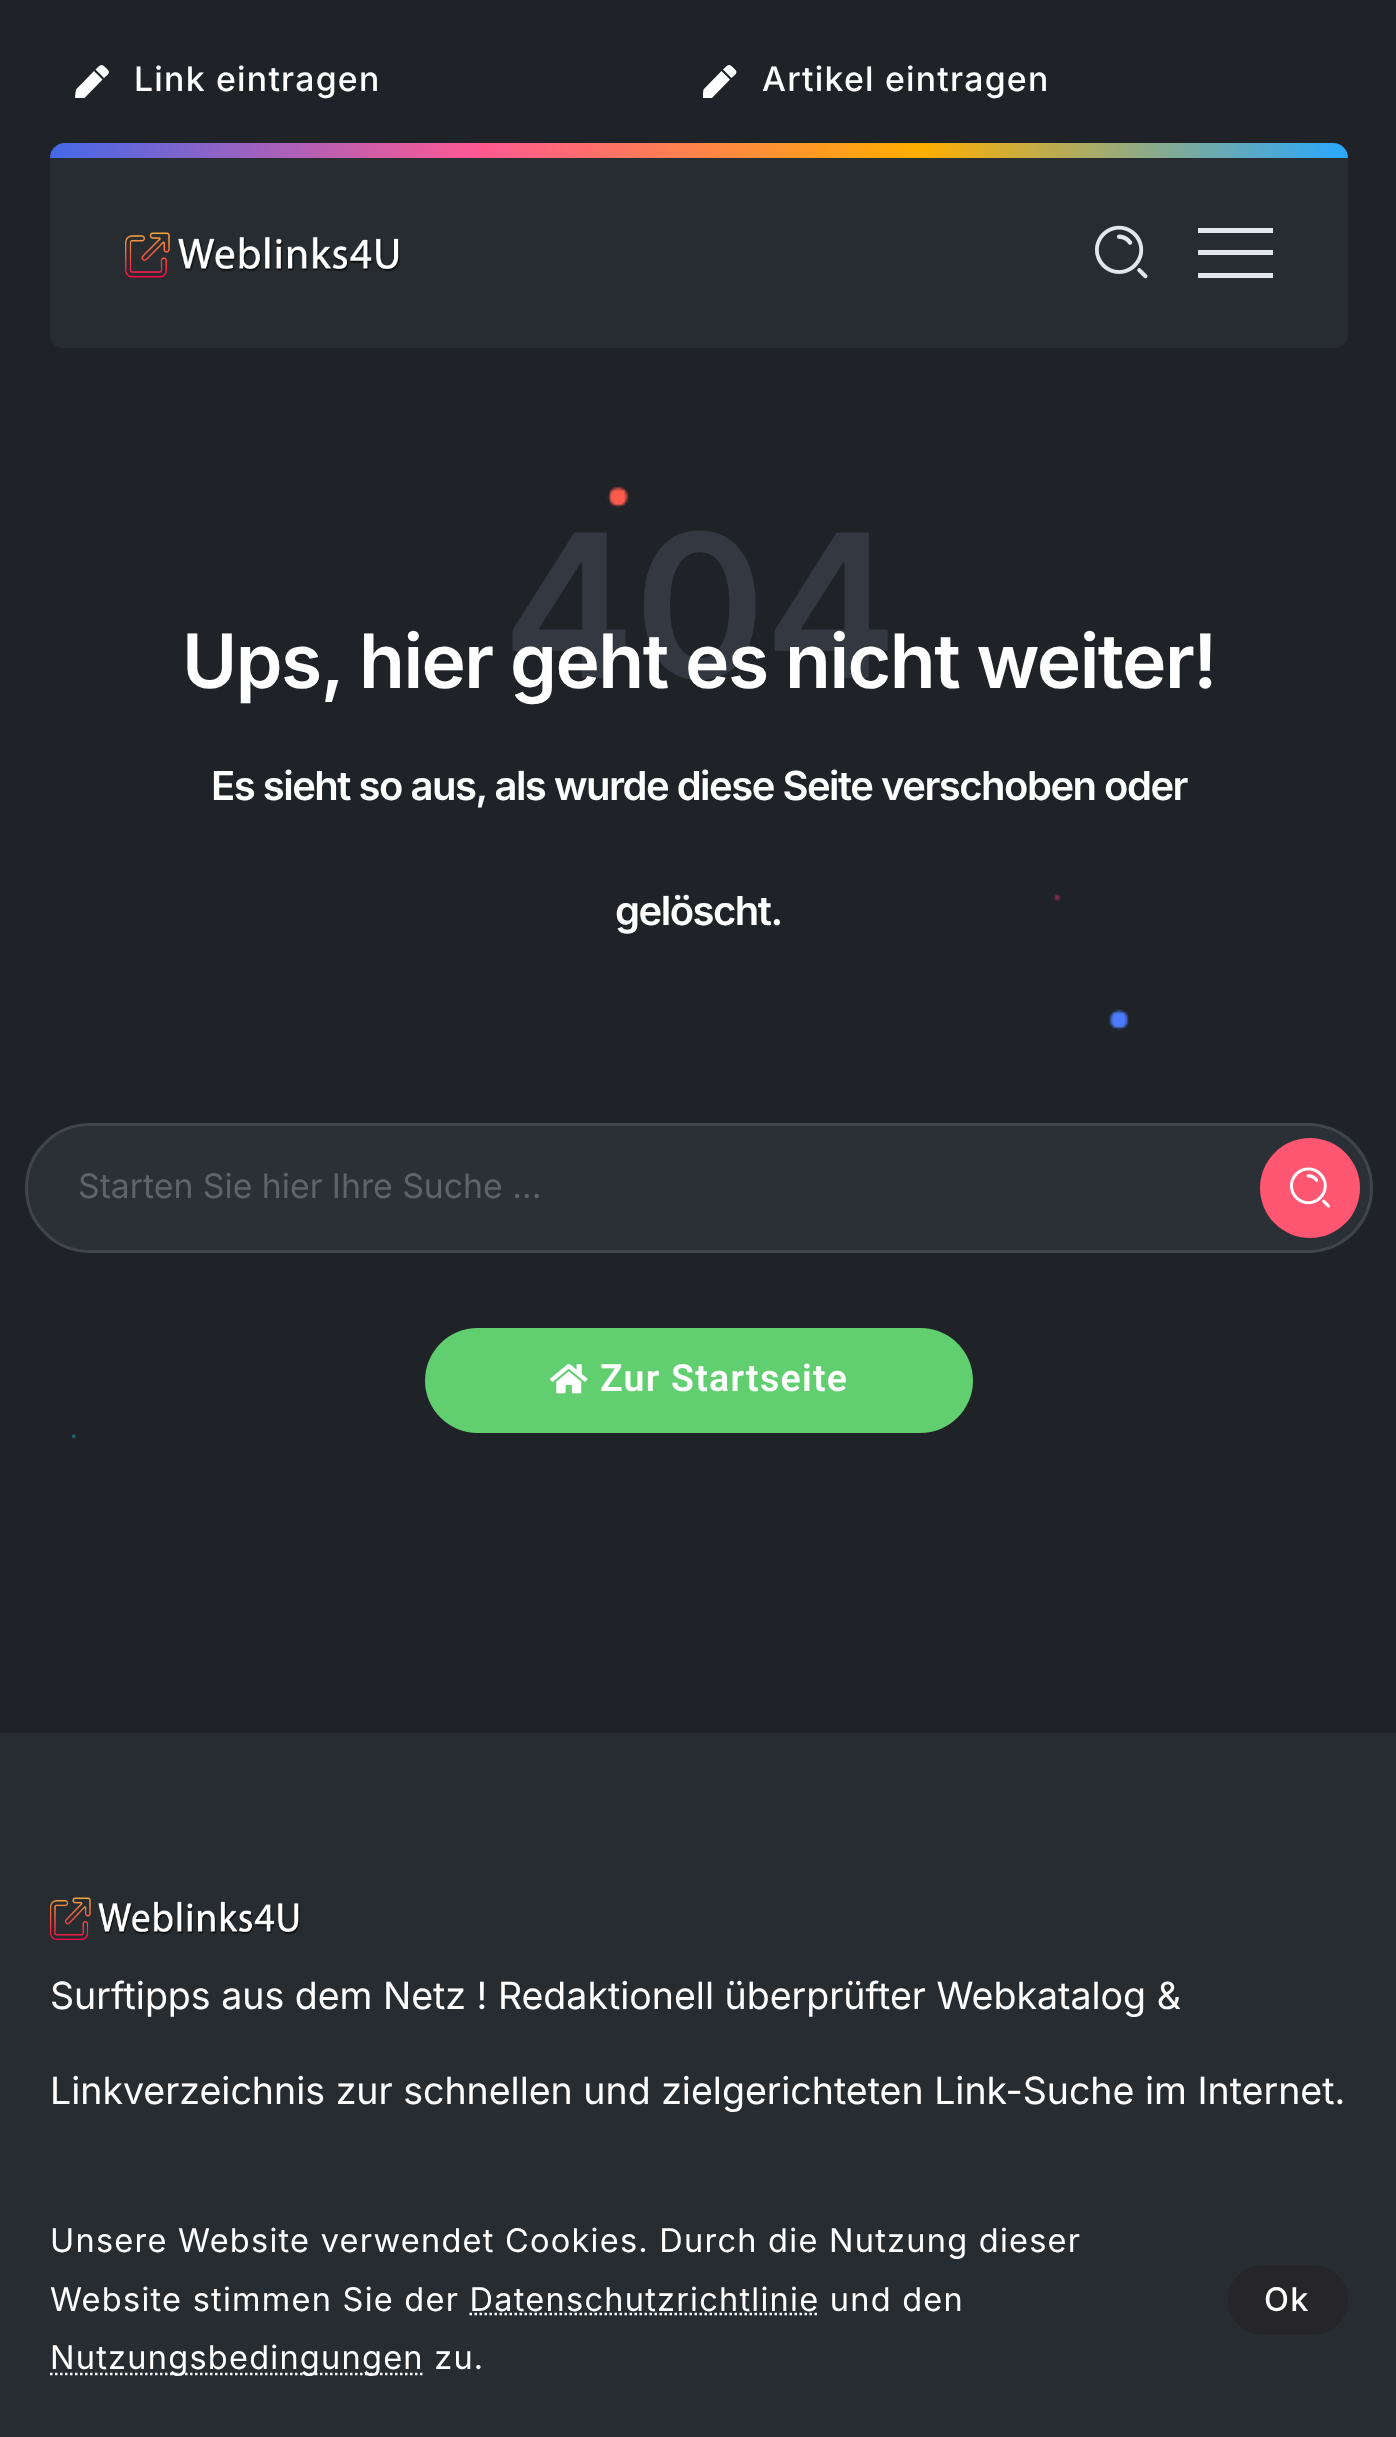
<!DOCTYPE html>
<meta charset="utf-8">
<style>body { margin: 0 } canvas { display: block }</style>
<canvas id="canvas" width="1396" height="2437"></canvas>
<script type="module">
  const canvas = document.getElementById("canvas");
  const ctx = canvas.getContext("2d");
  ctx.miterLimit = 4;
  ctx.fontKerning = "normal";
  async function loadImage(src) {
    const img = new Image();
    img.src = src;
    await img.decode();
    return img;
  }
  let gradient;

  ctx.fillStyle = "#1f2328";
  ctx.fillRect(0, 0, 1396, 2437);
  ctx.save();
  ctx.beginPath();
  ctx.rect(75, 65, 35, 33);
  ctx.clip();
  ctx.fillStyle = "#ffffff";
  ctx.beginPath();
  ctx.moveTo(94, 71);
  ctx.lineTo(102.5, 79.5);
  ctx.lineTo(84.5, 98);
  ctx.bezierCurveTo(73.5, 99, 74.5, 100.5, 76, 89.5);
  ctx.closePath();
  ctx.moveTo(108, 70);
  ctx.bezierCurveTo(101.5, 63.5, 102, 63.5, 95.5, 69.5);
  ctx.lineTo(104, 78);
  ctx.bezierCurveTo(106, 76, 111, 73, 108, 70);
  ctx.closePath();
  ctx.fill();
  ctx.restore();
  ctx.letterSpacing = "1.25px";
  ctx.font = "500 33.75px Inter";
  ctx.fillStyle = "#ffffff";
  ctx.fillText("Link eintragen", 134, 91);
  ctx.save();
  ctx.beginPath();
  ctx.rect(703, 65, 35, 33);
  ctx.clip();
  ctx.beginPath();
  ctx.moveTo(721.5, 71);
  ctx.lineTo(730, 79.5);
  ctx.lineTo(712, 98);
  ctx.bezierCurveTo(701, 99, 702, 100.5, 703.5, 89.5);
  ctx.closePath();
  ctx.moveTo(735.5, 70);
  ctx.bezierCurveTo(729, 63.5, 729.5, 63.5, 723, 69.5);
  ctx.lineTo(731.5, 78);
  ctx.bezierCurveTo(733.5, 76, 738.5, 73, 735.5, 70);
  ctx.closePath();
  ctx.fill();
  ctx.restore();
  ctx.fillText("Artikel eintragen", 762, 91);
  ctx.fillStyle = "#272c31";
  ctx.beginPath();
  ctx.roundRect(50, 143, 1298, 205, 13);
  ctx.fill();
  gradient = ctx.createLinearGradient(50, 150, 1348, 150);
  gradient.addColorStop(0, "#4569e7");
  gradient.addColorStop(0.33, "#ff5992");
  gradient.addColorStop(0.67, "#ffae00");
  gradient.addColorStop(1, "#29a8ff");
  ctx.fillStyle = gradient;
  ctx.beginPath();
  ctx.roundRect(50, 143, 1298, 15, [15, 15, 0, 0]);
  ctx.fill();
  ctx.drawImage(await loadImage("img1.png"), 125, 232, 275, 46);
  ctx.drawImage(await loadImage("img2.png"), 1095, 225, 53, 54);
  ctx.fillStyle = "#e3e7ed";
  ctx.fillRect(1198, 228, 75, 5);
  ctx.fillRect(1198, 250, 75, 5);
  ctx.fillRect(1198, 273, 75, 5);
  ctx.drawImage(await loadImage("img3.png"), 71, 486, 1058, 953);
  ctx.letterSpacing = "-1.5px";
  ctx.font = "600 200px Inter";
  ctx.fillStyle = "#343840";
  ctx.fillText("404", 502, 678);
  ctx.font = "600 75px Inter";
  ctx.fillStyle = "#ffffff";
  ctx.fillText("Ups, hier geht es nicht weiter!", 182, 688);
  ctx.font = "600 40px Inter";
  ctx.fillText("Es sieht so aus, als wurde diese Seite verschoben oder", 211, 800);
  ctx.fillText("gelöscht.", 615, 925);
  ctx.fillStyle = "#2a3036";
  ctx.beginPath();
  ctx.roundRect(26.5, 1124.5, 1345, 127, 63.5);
  ctx.fill();
  ctx.strokeStyle = "#3f454b";
  ctx.lineWidth = 3;
  ctx.stroke();
  ctx.letterSpacing = "0px";
  ctx.font = "33.75px Inter";
  ctx.fillStyle = "#5f6468";
  ctx.fillText("Starten Sie hier Ihre Suche ...", 78, 1198);
  ctx.fillStyle = "#ff5671";
  ctx.beginPath();
  ctx.arc(1310, 1188, 50, 0, Math.PI * 2);
  ctx.fill();
  ctx.drawImage(await loadImage("img4.png"), 1290, 1167, 40, 41);
  ctx.fillStyle = "#61ce70";
  ctx.beginPath();
  ctx.roundRect(425, 1328, 548, 105, 52.5);
  ctx.fill();
  ctx.drawImage(await loadImage("img5.png"), 550, 1364, 38, 30);
  ctx.letterSpacing = "1.25px";
  ctx.font = "600 37.5px Roboto";
  ctx.fillStyle = "#ffffff";
  ctx.fillText("Zur Startseite", 600, 1391);
  ctx.fillStyle = "#272c31";
  ctx.fillRect(0, 1733, 1396, 704);
  ctx.drawImage(await loadImage("img6.png"), 50, 1897, 250, 43);
  ctx.letterSpacing = "0px";
  ctx.font = "37.5px Inter";
  ctx.fillStyle = "#ffffff";
  ctx.fillText("Surftipps aus dem Netz ! Redaktionell überprüfter Webkatalog &", 50, 2009);
  ctx.fillText("Linkverzeichnis zur schnellen und zielgerichteten Link-Suche im Internet.", 50, 2104);
  ctx.letterSpacing = "1.25px";
  ctx.font = "32.5px Inter";
  ctx.fillText("Unsere Website verwendet Cookies. Durch die Nutzung dieser", 50, 2252);
  ctx.fillText("Website stimmen Sie der Datenschutzrichtlinie und den", 50, 2311);
  ctx.beginPath();
  ctx.moveTo(469.5, 2314);
  ctx.lineTo(819.5, 2314);
  ctx.strokeStyle = "#ffffff";
  ctx.lineWidth = 2.5;
  ctx.setLineDash([2.5, 2.5]);
  ctx.stroke();
  ctx.beginPath();
  ctx.moveTo(50, 2374);
  ctx.lineTo(424, 2374);
  ctx.stroke();
  ctx.fillText("Nutzungsbedingungen zu.", 50, 2369);
  ctx.fillStyle = "#25252a";
  ctx.beginPath();
  ctx.roundRect(1228, 2265, 120, 70, 35);
  ctx.fill();
  ctx.font = "500 32.5px Inter";
  ctx.fillStyle = "#ffffff";
  ctx.fillText("Ok", 1264, 2311);
</script>
